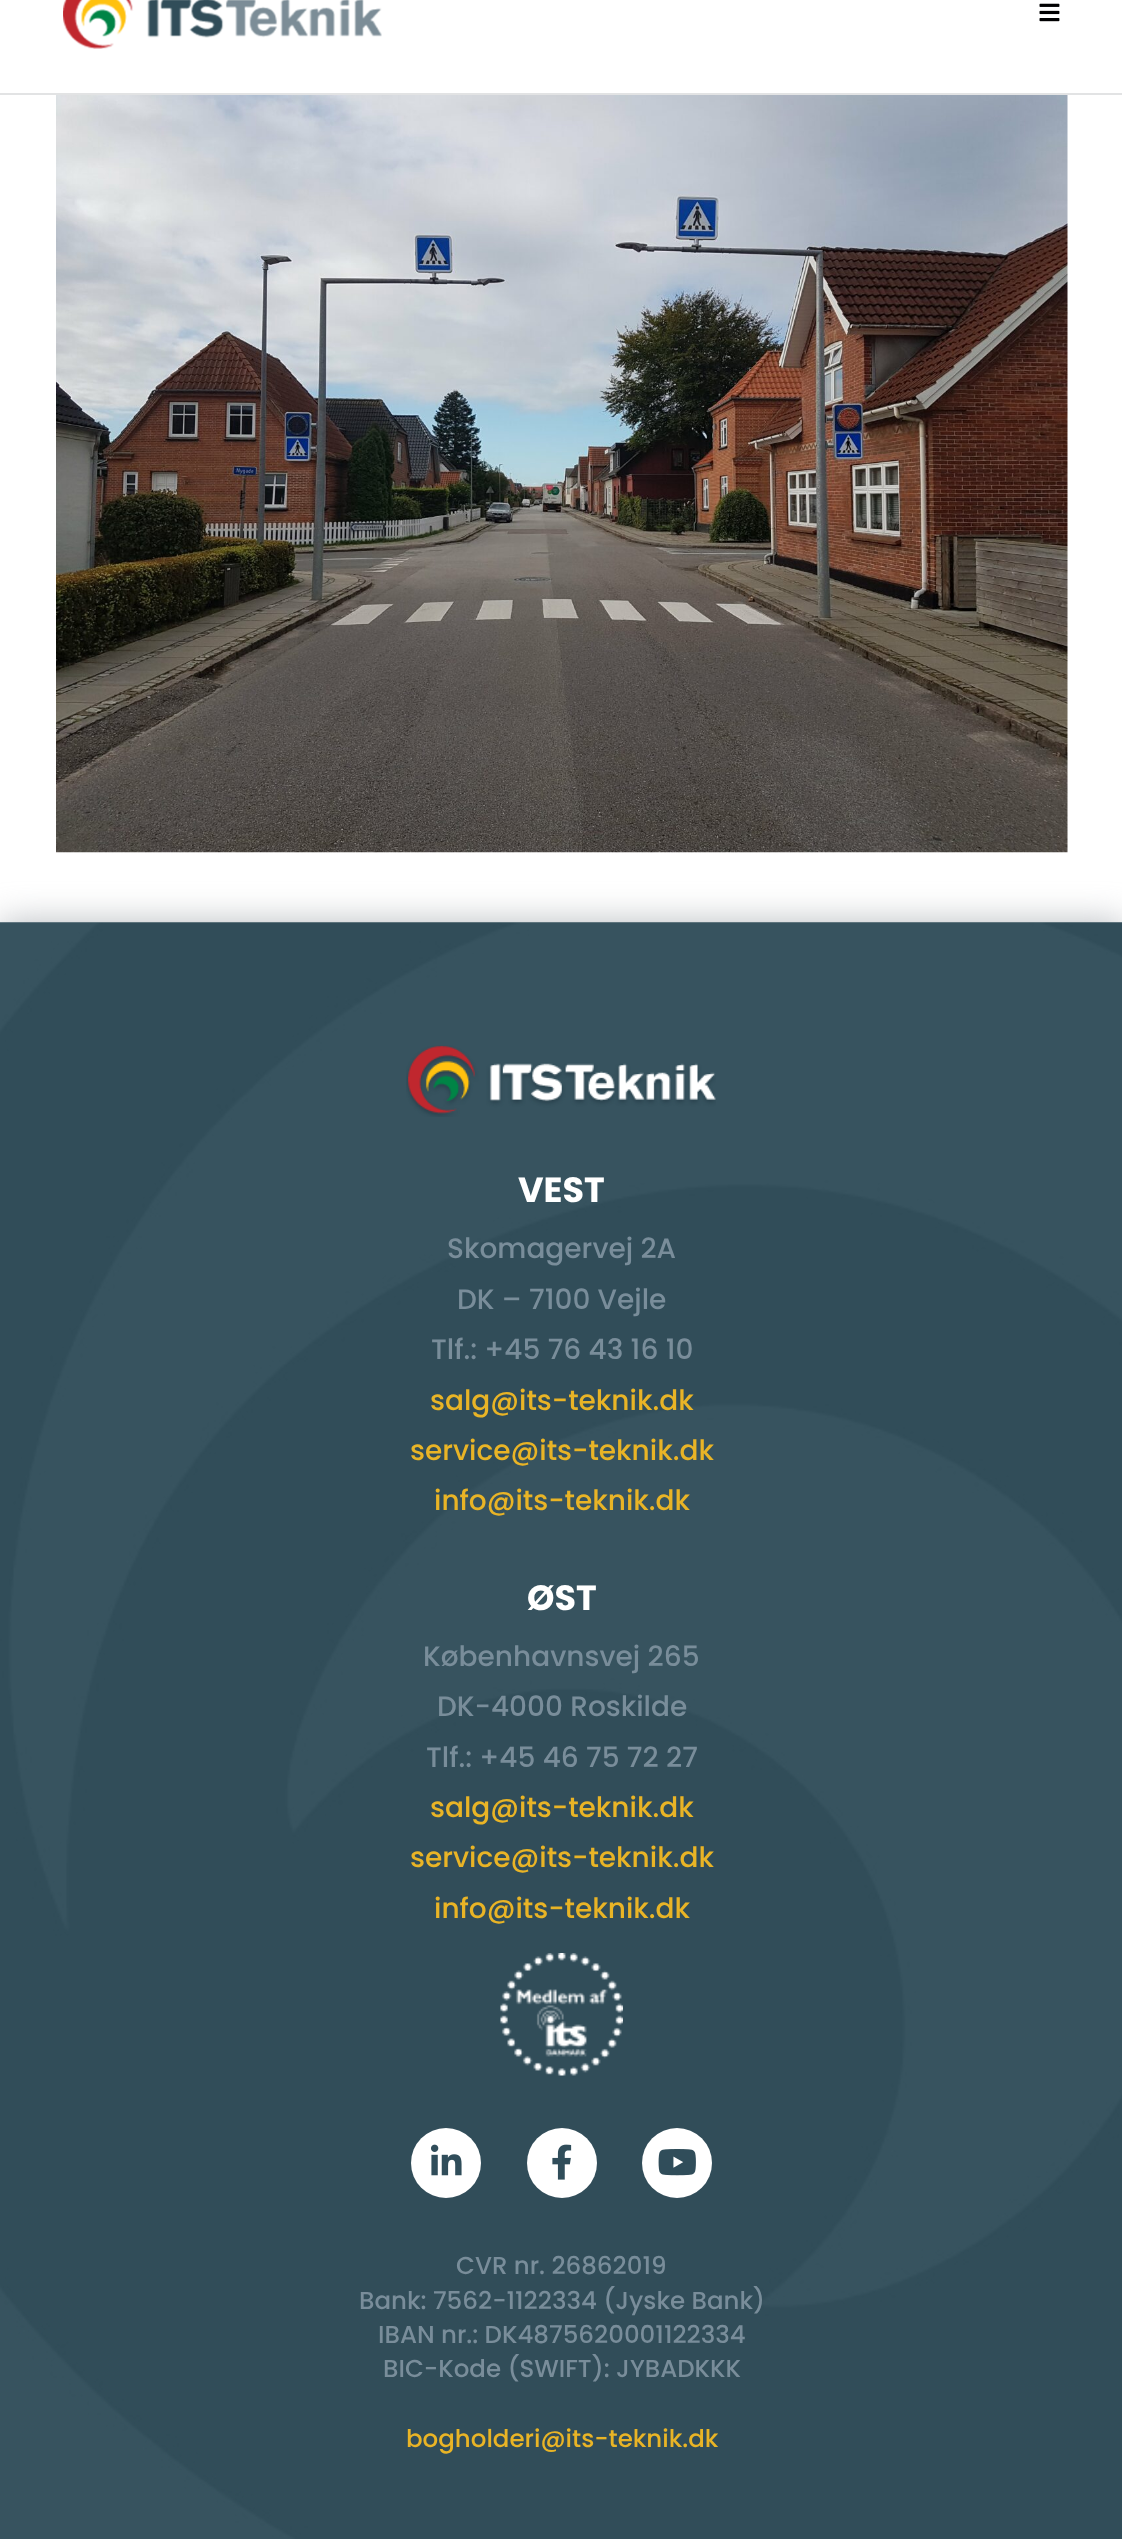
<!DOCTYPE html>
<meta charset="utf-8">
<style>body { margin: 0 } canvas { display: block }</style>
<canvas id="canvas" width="1122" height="2539"></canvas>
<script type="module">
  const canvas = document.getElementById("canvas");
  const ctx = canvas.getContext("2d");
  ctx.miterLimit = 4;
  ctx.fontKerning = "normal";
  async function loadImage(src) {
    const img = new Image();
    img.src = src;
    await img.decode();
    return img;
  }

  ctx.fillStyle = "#ffffff";
  ctx.fillRect(0, 0, 1122, 2539);
  ctx.fillStyle = "#e2e3e4";
  ctx.fillRect(0, 93, 1122, 2);
  ctx.drawImage(await loadImage("img1.png"), 63, 0, 319, 49);
  ctx.drawImage(await loadImage("img2.png"), 1039, 3, 21, 19);
  ctx.drawImage(await loadImage("img3.png"), 56, 95, 1012, 758);
  ctx.fillStyle = "rgba(166, 171, 176, 0.8)";
  ctx.filter = "blur(17.5px)";
  ctx.beginPath();
  ctx.rect(0, 922, 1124, 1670);
  ctx.fill();
  ctx.filter = "none";
  ctx.drawImage(await loadImage("img4.png"), 0, 922, 1122, 1617);
  ctx.drawImage(await loadImage("img5.png"), 406, 1045, 310, 72);
  ctx.font = "bold 35px Poppins";
  ctx.fillStyle = "#ffffff";
  ctx.fillText("VEST", 518, 1202);
  ctx.font = "500 28px Poppins";
  ctx.fillStyle = "#798d9a";
  ctx.fillText("Skomagervej 2A", 447, 1258);
  ctx.fillText("DK – 7100 Vejle", 457, 1309);
  ctx.fillText("Tlf.: +45 76 43 16 10", 431, 1359);
  ctx.fillStyle = "#e9b426";
  ctx.fillText("salg@its-teknik.dk", 430, 1410);
  ctx.fillText("service@its-teknik.dk", 410, 1460);
  ctx.fillText("info@its-teknik.dk", 434, 1510);
  ctx.font = "bold 35px Poppins";
  ctx.fillStyle = "#ffffff";
  ctx.fillText("ØST", 527, 1610);
  ctx.font = "500 28px Poppins";
  ctx.fillStyle = "#798d9a";
  ctx.fillText("Københavnsvej 265", 423, 1666);
  ctx.fillText("DK-4000 Roskilde", 437, 1716);
  ctx.fillText("Tlf.: +45 46 75 72 27", 426, 1767);
  ctx.fillStyle = "#e9b426";
  ctx.fillText("salg@its-teknik.dk", 430, 1817);
  ctx.fillText("service@its-teknik.dk", 410, 1867);
  ctx.fillText("info@its-teknik.dk", 434, 1918);
  ctx.drawImage(await loadImage("img6.png"), 500, 1953, 123, 123);
  ctx.fillStyle = "#ffffff";
  ctx.beginPath();
  ctx.arc(446, 2163, 35, 0, Math.PI * 2);
  ctx.fill();
  ctx.drawImage(await loadImage("img7.png"), 431, 2144, 31, 32);
  ctx.beginPath();
  ctx.arc(562, 2163, 35, 0, Math.PI * 2);
  ctx.fill();
  ctx.drawImage(await loadImage("img8.png"), 552, 2144, 20, 36);
  ctx.beginPath();
  ctx.arc(677, 2163, 35, 0, Math.PI * 2);
  ctx.fill();
  ctx.drawImage(await loadImage("img9.png"), 658, 2149, 38, 27);
  ctx.font = "500 24.5px Poppins";
  ctx.fillStyle = "#798d9a";
  ctx.fillText("CVR nr. 26862019", 456, 2274);
  ctx.fillText("Bank: 7562-1122334 (Jyske Bank)", 359, 2309);
  ctx.fillText("IBAN nr.: DK4875620001122334", 378, 2343);
  ctx.fillText("BIC-Kode (SWIFT): JYBADKKK", 383, 2377);
  ctx.fillStyle = "#e9b426";
  ctx.fillText("bogholderi@its-teknik.dk", 406, 2447);
</script>
